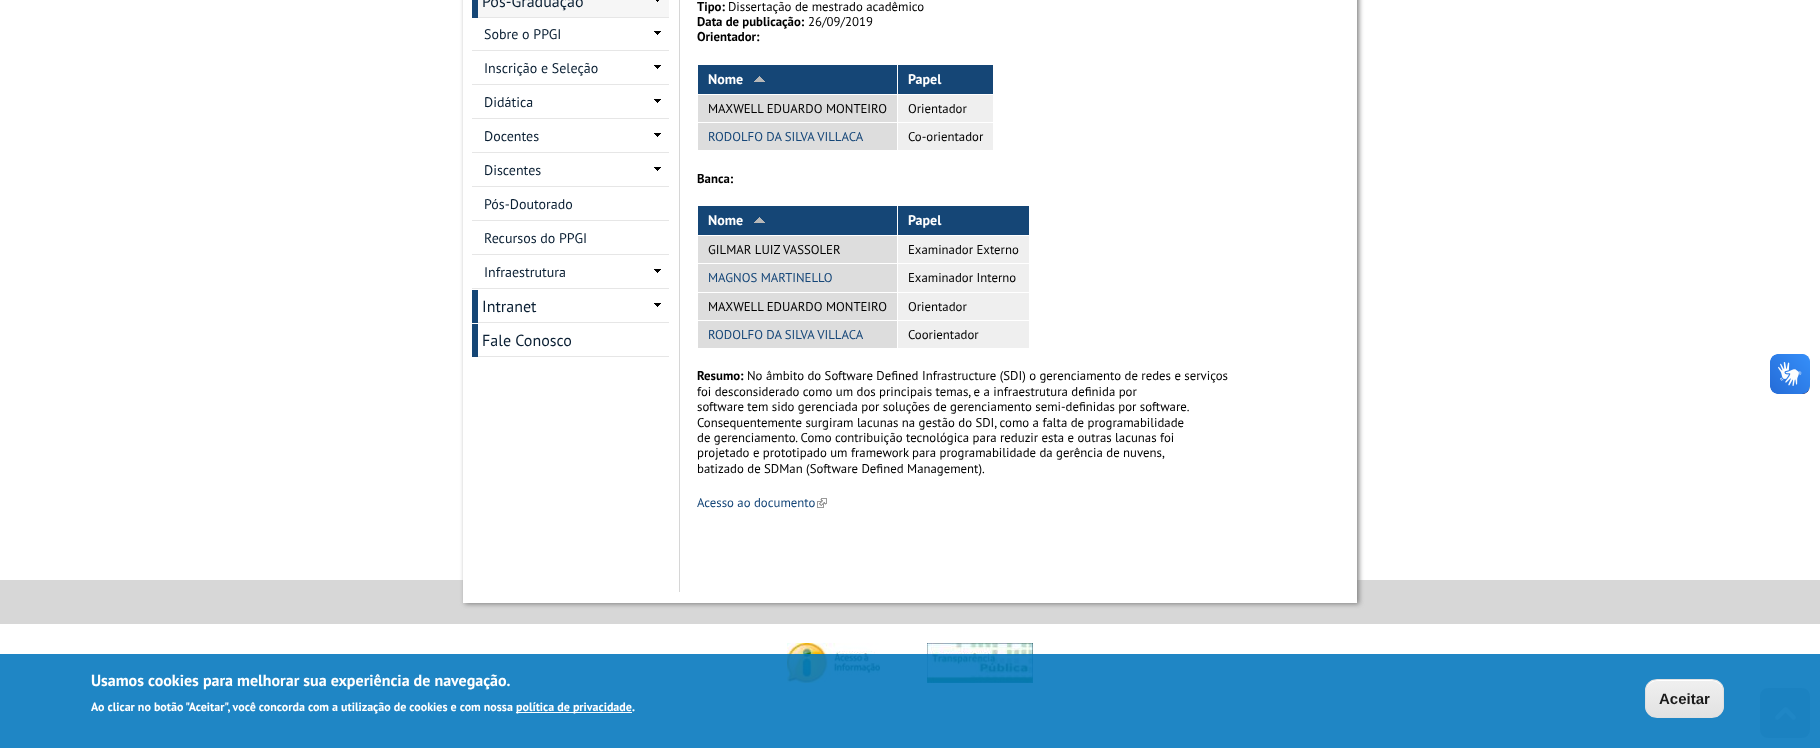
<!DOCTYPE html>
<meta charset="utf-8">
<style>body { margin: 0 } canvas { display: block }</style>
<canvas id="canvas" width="1820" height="748"></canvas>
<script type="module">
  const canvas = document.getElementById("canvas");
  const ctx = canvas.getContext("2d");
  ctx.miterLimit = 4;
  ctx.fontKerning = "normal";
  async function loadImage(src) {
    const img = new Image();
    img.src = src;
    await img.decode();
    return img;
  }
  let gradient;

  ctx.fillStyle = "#ffffff";
  ctx.fillRect(0, 0, 1820, 748);
  ctx.fillStyle = "#d7d7d7";
  ctx.fillRect(0, 580, 1820, 44);
  ctx.fillStyle = "#808080";
  ctx.filter = "blur(2.5px)";
  ctx.beginPath();
  ctx.rect(465, -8, 894, 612);
  ctx.fill();
  ctx.filter = "none";
  ctx.fillStyle = "#ffffff";
  ctx.fillRect(463, 0, 894, 603);
  ctx.fillStyle = "#154676";
  ctx.fillRect(472, 0, 6, 18);
  ctx.fillStyle = "#f6f6f6";
  ctx.fillRect(478, 0, 191, 17);
  ctx.drawImage(await loadImage("img1.png"), 656, 0, 3, 2);
  ctx.fillStyle = "#e6e6e6";
  ctx.fillRect(478, 17, 191, 1);
  ctx.font = "16px PT Sans";
  ctx.fillStyle = "#0a1f33";
  ctx.fillText("Pós-Graduação", 482, 7);
  ctx.drawImage(await loadImage("img2.png"), 654, 31, 7, 4);
  ctx.fillStyle = "#e6e6e6";
  ctx.fillRect(472, 50, 197, 1);
  ctx.font = "14px PT Sans";
  ctx.fillStyle = "#0a1f33";
  ctx.fillText("Sobre o PPGI", 484, 39);
  ctx.drawImage(await loadImage("img2.png"), 654, 65, 7, 4);
  ctx.fillStyle = "#e6e6e6";
  ctx.fillRect(472, 84, 197, 1);
  ctx.fillStyle = "#0a1f33";
  ctx.fillText("Inscrição e Seleção", 484, 73);
  ctx.drawImage(await loadImage("img2.png"), 654, 99, 7, 4);
  ctx.fillStyle = "#e6e6e6";
  ctx.fillRect(472, 118, 197, 1);
  ctx.fillStyle = "#0a1f33";
  ctx.fillText("Didática", 484, 107);
  ctx.drawImage(await loadImage("img2.png"), 654, 133, 7, 4);
  ctx.fillStyle = "#e6e6e6";
  ctx.fillRect(472, 152, 197, 1);
  ctx.fillStyle = "#0a1f33";
  ctx.fillText("Docentes", 484, 141);
  ctx.drawImage(await loadImage("img2.png"), 654, 167, 7, 4);
  ctx.fillStyle = "#e6e6e6";
  ctx.fillRect(472, 186, 197, 1);
  ctx.fillStyle = "#0a1f33";
  ctx.fillText("Discentes", 484, 175);
  ctx.fillStyle = "#e6e6e6";
  ctx.fillRect(472, 220, 197, 1);
  ctx.fillStyle = "#0a1f33";
  ctx.fillText("Pós-Doutorado", 484, 209);
  ctx.fillStyle = "#e6e6e6";
  ctx.fillRect(472, 254, 197, 1);
  ctx.fillStyle = "#0a1f33";
  ctx.fillText("Recursos do PPGI", 484, 243);
  ctx.drawImage(await loadImage("img2.png"), 654, 269, 7, 4);
  ctx.fillStyle = "#e6e6e6";
  ctx.fillRect(472, 288, 197, 1);
  ctx.fillStyle = "#0a1f33";
  ctx.fillText("Infraestrutura", 484, 277);
  ctx.fillStyle = "#154676";
  ctx.fillRect(472, 290, 6, 33);
  ctx.drawImage(await loadImage("img2.png"), 654, 303, 7, 4);
  ctx.fillStyle = "#e6e6e6";
  ctx.fillRect(478, 322, 191, 1);
  ctx.font = "16px PT Sans";
  ctx.fillStyle = "#0a1f33";
  ctx.fillText("Intranet", 482, 312);
  ctx.fillStyle = "#154676";
  ctx.fillRect(472, 324, 6, 33);
  ctx.fillStyle = "#e6e6e6";
  ctx.fillRect(478, 356, 191, 1);
  ctx.fillStyle = "#0a1f33";
  ctx.fillText("Fale Conosco", 482, 346);
  ctx.fillStyle = "#d6d6d6";
  ctx.fillRect(679, 0, 1, 592);
  ctx.font = "bold 12.8px PT Sans";
  ctx.fillStyle = "#000000";
  ctx.fillText("Tipo:", 697, 11);
  ctx.font = "12.8px PT Sans";
  ctx.fillText("Dissertação de mestrado acadêmico", 728, 11);
  ctx.font = "bold 12.8px PT Sans";
  ctx.fillText("Data de publicação:", 697, 26);
  ctx.font = "12.8px PT Sans";
  ctx.fillText("26/09/2019", 808, 26);
  ctx.font = "bold 12.8px PT Sans";
  ctx.fillText("Orientador:", 697, 41);
  ctx.fillStyle = "#154676";
  ctx.fillRect(698, 65, 199, 29);
  ctx.font = "bold 14px PT Sans";
  ctx.fillStyle = "#ffffff";
  ctx.fillText("Nome", 708, 84);
  ctx.drawImage(await loadImage("img3.png"), 754, 76, 11, 6);
  ctx.fillStyle = "#154676";
  ctx.fillRect(898, 65, 95, 29);
  ctx.fillStyle = "#ffffff";
  ctx.fillText("Papel", 908, 84);
  ctx.fillStyle = "#efefef";
  ctx.fillRect(898, 95, 95, 27);
  ctx.fillStyle = "#dddddd";
  ctx.fillRect(698, 95, 199, 27);
  ctx.font = "12.8px PT Sans";
  ctx.fillStyle = "#000000";
  ctx.fillText("MAXWELL EDUARDO MONTEIRO", 708, 113);
  ctx.fillText("Orientador", 908, 113);
  ctx.fillStyle = "#efefef";
  ctx.fillRect(898, 123, 95, 27);
  ctx.fillStyle = "#dddddd";
  ctx.fillRect(698, 123, 199, 27);
  ctx.fillStyle = "#154678";
  ctx.fillText("RODOLFO DA SILVA VILLACA", 708, 141);
  ctx.fillStyle = "#000000";
  ctx.fillText("Co-orientador", 908, 141);
  ctx.font = "bold 12.8px PT Sans";
  ctx.fillText("Banca:", 697, 183);
  ctx.fillStyle = "#154676";
  ctx.fillRect(698, 206, 199, 29);
  ctx.font = "bold 14px PT Sans";
  ctx.fillStyle = "#ffffff";
  ctx.fillText("Nome", 708, 225);
  ctx.drawImage(await loadImage("img3.png"), 754, 217, 11, 6);
  ctx.fillStyle = "#154676";
  ctx.fillRect(898, 206, 131, 29);
  ctx.fillStyle = "#ffffff";
  ctx.fillText("Papel", 908, 225);
  ctx.fillStyle = "#efefef";
  ctx.fillRect(898, 236, 131, 27);
  ctx.fillStyle = "#dddddd";
  ctx.fillRect(698, 236, 199, 27);
  ctx.font = "12.8px PT Sans";
  ctx.fillStyle = "#000000";
  ctx.fillText("GILMAR LUIZ VASSOLER", 708, 254);
  ctx.fillText("Examinador Externo", 908, 254);
  ctx.fillStyle = "#efefef";
  ctx.fillRect(898, 264, 131, 28);
  ctx.fillStyle = "#dddddd";
  ctx.fillRect(698, 264, 199, 28);
  ctx.fillStyle = "#154678";
  ctx.fillText("MAGNOS MARTINELLO", 708, 282);
  ctx.fillStyle = "#000000";
  ctx.fillText("Examinador Interno", 908, 282);
  ctx.fillStyle = "#efefef";
  ctx.fillRect(898, 293, 131, 27);
  ctx.fillStyle = "#dddddd";
  ctx.fillRect(698, 293, 199, 27);
  ctx.fillStyle = "#000000";
  ctx.fillText("MAXWELL EDUARDO MONTEIRO", 708, 311);
  ctx.fillText("Orientador", 908, 311);
  ctx.fillStyle = "#efefef";
  ctx.fillRect(898, 321, 131, 27);
  ctx.fillStyle = "#dddddd";
  ctx.fillRect(698, 321, 199, 27);
  ctx.fillStyle = "#154678";
  ctx.fillText("RODOLFO DA SILVA VILLACA", 708, 339);
  ctx.fillStyle = "#000000";
  ctx.fillText("Coorientador", 908, 339);
  ctx.font = "bold 12.8px PT Sans";
  ctx.fillText("Resumo:", 697, 380);
  ctx.font = "12.8px PT Sans";
  ctx.fillText("No âmbito do Software Defined Infrastructure (SDI) o gerenciamento de redes e serviços", 747, 380);
  ctx.fillText("foi desconsiderado como um dos principais temas, e a infraestrutura definida por", 697, 396);
  ctx.fillText("software tem sido gerenciada por soluções de gerenciamento semi-definidas por software.", 697, 411);
  ctx.fillText("Consequentemente surgiram lacunas na gestão do SDI, como a falta de programabilidade", 697, 427);
  ctx.fillText("de gerenciamento. Como contribuição tecnológica para reduzir esta e outras lacunas foi", 697, 442);
  ctx.fillText("projetado e prototipado um framework para programabilidade da gerência de nuvens,", 697, 457);
  ctx.fillText("batizado de SDMan (Software Defined Management).", 697, 473);
  ctx.fillStyle = "#154678";
  ctx.fillText("Acesso ao documento", 697, 507);
  ctx.drawImage(await loadImage("img4.png"), 817, 498, 10, 10);
  ctx.drawImage(await loadImage("img5.png"), 1770, 354, 40, 40);
  ctx.drawImage(await loadImage("img6.png"), 1770, 354, 40, 40);
  ctx.drawImage(await loadImage("img7.png"), 787, 643, 93, 40);
  ctx.drawImage(await loadImage("img8.png"), 927, 643, 106, 40);
  ctx.fillStyle = "#d6d6d6";
  ctx.beginPath();
  ctx.roundRect(1760, 688, 50, 50, 8);
  ctx.fill();
  ctx.drawImage(await loadImage("img9.png"), 1775, 707, 21, 13);
  ctx.fillStyle = "rgba(7, 121, 191, 0.9)";
  ctx.fillRect(0, 654, 1820, 94);
  ctx.font = "bold 16px PT Sans";
  ctx.fillStyle = "#ffffff";
  ctx.fillText("Usamos cookies para melhorar sua experiência de navegação.", 91, 686);
  ctx.font = "bold 12px PT Sans";
  ctx.fillText("Ao clicar no botão \"Aceitar\", você concorda com a utilização de cookies e com nossa", 91, 711);
  ctx.fillRect(516, 712, 116, 1);
  ctx.fillText("política de privacidade.", 516, 711);
  ctx.save();
  ctx.beginPath();
  ctx.roundRect(1645, 679, 79, 39, 12);
  ctx.clip();
  gradient = ctx.createLinearGradient(1685, 680, 1685, 717);
  gradient.addColorStop(0.05, "#efefef");
  gradient.addColorStop(1, "#e2e2e2");
  ctx.fillStyle = gradient;
  ctx.fillRect(1645, 680, 79, 37);
  ctx.restore();
  ctx.beginPath();
  ctx.moveTo(1657, 681);
  ctx.lineTo(1712, 681);
  ctx.bezierCurveTo(1718, 681, 1723, 686, 1723, 692);
  ctx.bezierCurveTo(1723, 679, 1712, 680, 1703, 680);
  ctx.lineTo(1666, 680);
  ctx.bezierCurveTo(1657, 680, 1646, 679, 1646, 692);
  ctx.bezierCurveTo(1646, 686, 1651, 681, 1657, 681);
  ctx.closePath();
  ctx.fill();
  ctx.beginPath();
  ctx.roundRect(1645.5, 679.5, 78, 38, 11.5);
  ctx.strokeStyle = "#e0e0e0";
  ctx.stroke();
  ctx.font = "bold 15px Liberation Sans";
  ctx.fillStyle = "#1a1a1a";
  ctx.fillText("Aceitar", 1659, 704);
</script>
